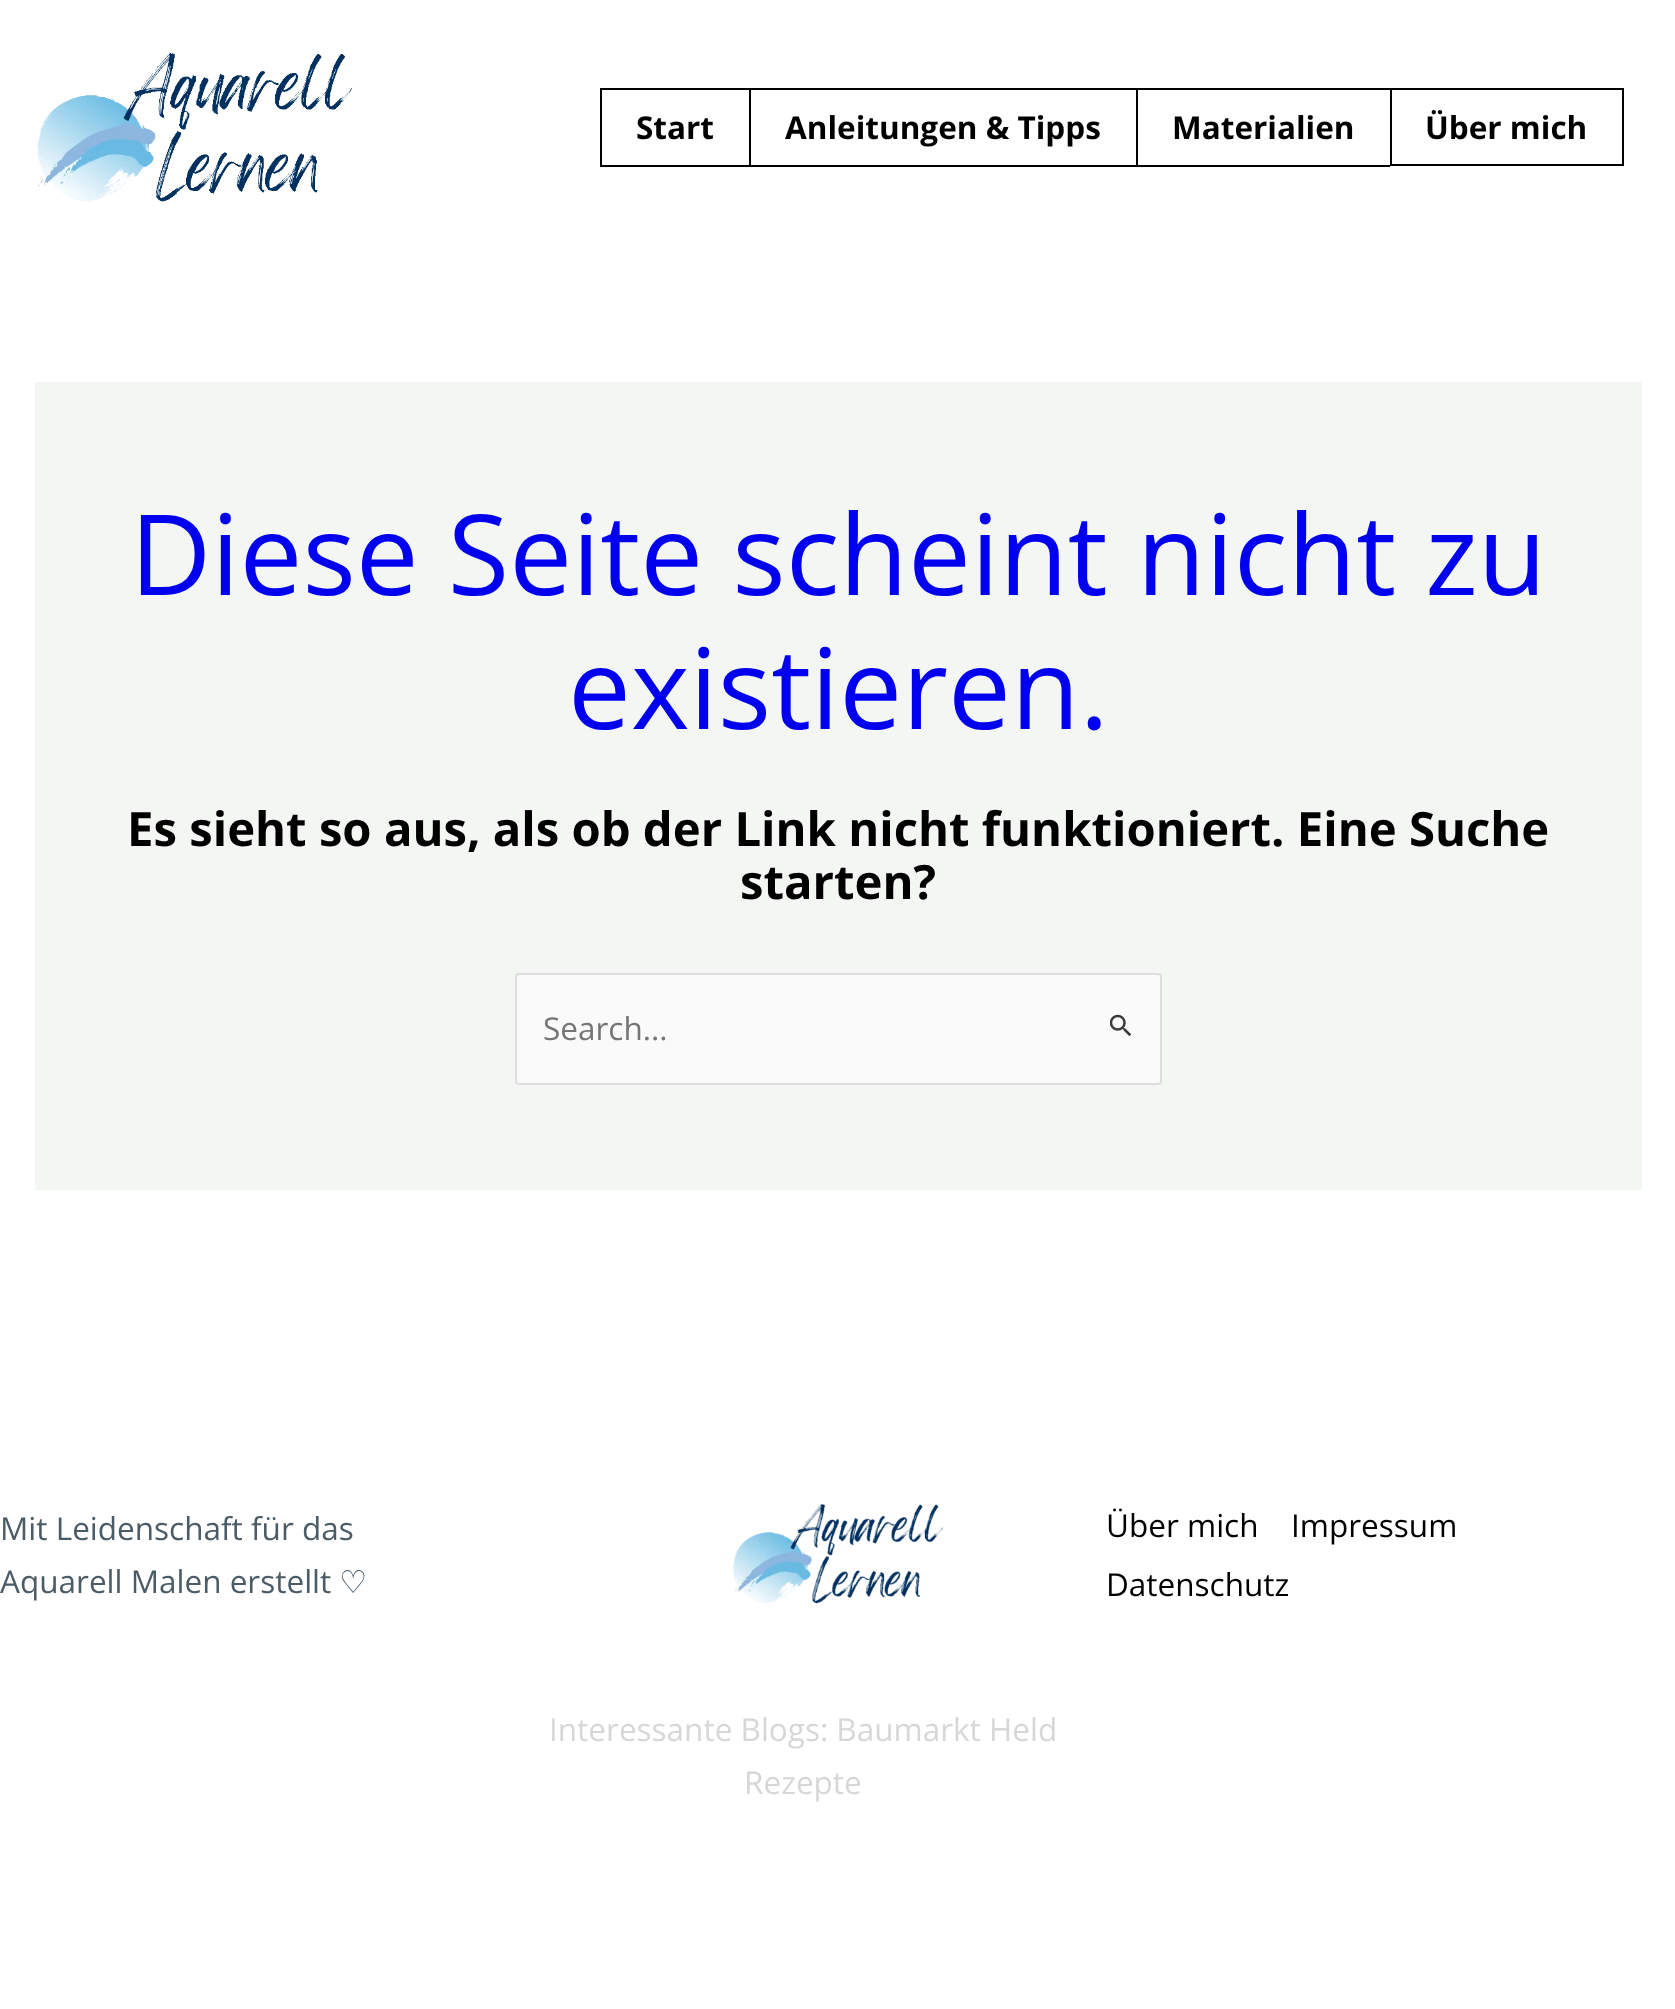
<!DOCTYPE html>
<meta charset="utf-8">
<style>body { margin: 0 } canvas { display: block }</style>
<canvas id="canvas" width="1675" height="2009"></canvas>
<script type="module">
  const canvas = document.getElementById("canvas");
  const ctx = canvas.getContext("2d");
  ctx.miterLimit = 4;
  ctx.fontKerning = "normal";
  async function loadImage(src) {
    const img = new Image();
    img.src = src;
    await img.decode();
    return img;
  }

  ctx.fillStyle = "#ffffff";
  ctx.fillRect(0, 0, 1675, 2009);
  ctx.drawImage(await loadImage("img1.png"), 35, 53, 317, 149);
  ctx.fillStyle = "#000000";
  ctx.fillRect(600, 88, 790, 2);
  ctx.fillRect(600, 165, 790, 2);
  ctx.fillRect(600, 88, 2, 78);
  ctx.font = "bold 31.5px Open Sans";
  ctx.fillText("Start", 636, 139);
  ctx.fillRect(749, 88, 2, 78);
  ctx.fillText("Anleitungen & Tipps", 785, 139);
  ctx.fillRect(1136, 88, 2, 78);
  ctx.fillText("Materialien", 1172, 139);
  ctx.strokeStyle = "#000000";
  ctx.lineWidth = 2;
  ctx.strokeRect(1391, 89, 232, 76);
  ctx.fillText("Über mich", 1425, 139);
  ctx.fillStyle = "#f4f6f4";
  ctx.fillRect(35, 382, 1607, 808);
  ctx.font = "112px Open Sans";
  ctx.fillStyle = "#0000ee";
  ctx.fillText("Diese Seite scheint nicht zu", 130, 595);
  ctx.fillText("existieren.", 568, 729);
  ctx.font = "bold 47.25px Open Sans";
  ctx.fillStyle = "#000000";
  ctx.fillText("Es sieht so aus, als ob der Link nicht funktioniert. Eine Suche", 127, 846);
  ctx.fillText("starten?", 740, 899);
  ctx.fillStyle = "#fafafa";
  ctx.beginPath();
  ctx.roundRect(516, 974, 645, 110, 3);
  ctx.fill();
  ctx.strokeStyle = "#dddddd";
  ctx.stroke();
  ctx.font = "31.5px Open Sans";
  ctx.fillStyle = "#757575";
  ctx.fillText("Search...", 543, 1040);
  ctx.drawImage(await loadImage("img2.png"), 1110, 1014, 22, 23);
  ctx.fillStyle = "#4c5c67";
  ctx.fillText("Mit Leidenschaft für das", 0, 1540);
  ctx.fillText("Aquarell Malen erstellt", 0, 1593);
  ctx.font = "31.5px DejaVu Sans";
  ctx.fillText("♡", 339, 1593);
  ctx.drawImage(await loadImage("img3.png"), 733, 1503, 211, 101);
  ctx.font = "31.5px Open Sans";
  ctx.fillStyle = "#000000";
  ctx.fillText("Über mich", 1106, 1537);
  ctx.fillText("Impressum", 1291, 1537);
  ctx.fillText("Datenschutz", 1106, 1596);
  ctx.fillStyle = "#d7d7d7";
  ctx.fillText("Interessante Blogs: Baumarkt Held", 549, 1741);
  ctx.fillText("Rezepte", 744, 1794);
</script>
